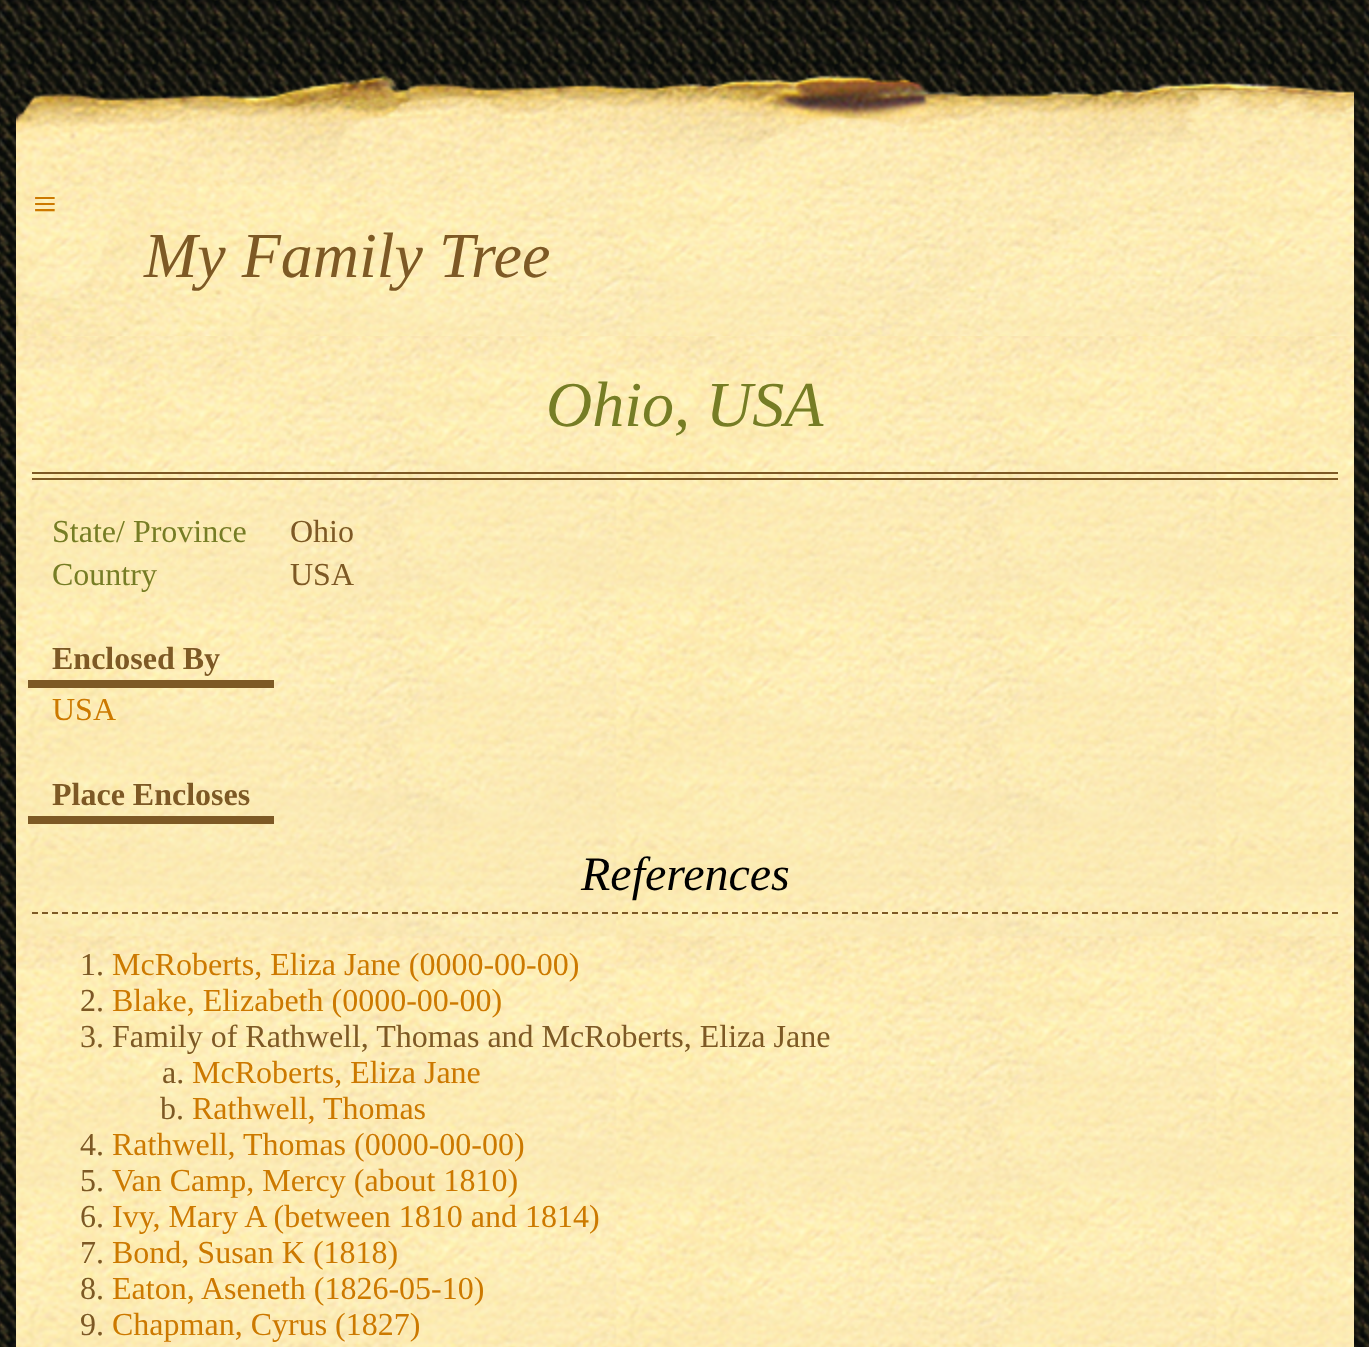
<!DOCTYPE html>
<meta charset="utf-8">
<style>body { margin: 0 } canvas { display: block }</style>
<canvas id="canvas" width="1369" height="1347"></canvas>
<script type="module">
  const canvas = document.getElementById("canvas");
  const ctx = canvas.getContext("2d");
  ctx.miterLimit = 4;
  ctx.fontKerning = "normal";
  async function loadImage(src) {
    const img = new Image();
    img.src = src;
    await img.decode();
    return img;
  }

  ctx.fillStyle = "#ffffff";
  ctx.fillRect(0, 0, 1369, 1347);
  ctx.drawImage(await loadImage("img1.png"), 0, 0, 1369, 1347);
  ctx.drawImage(await loadImage("img2.png"), 16, 75, 1338, 261);
  ctx.font = "42px Liberation Serif";
  ctx.fillStyle = "#cc7900";
  ctx.fillText("≡", 33, 218);
  ctx.font = "italic 64px Liberation Serif";
  ctx.fillStyle = "#7d5925";
  ctx.fillText("My Family Tree", 144, 277);
  ctx.drawImage(await loadImage("img3.png"), 16, 336, 1338, 1011);
  ctx.fillRect(32, 472, 1306, 2);
  ctx.fillRect(32, 478, 1306, 2);
  ctx.fillStyle = "#767d25";
  ctx.fillText("Ohio, USA", 546, 426);
  ctx.font = "32px Liberation Serif";
  ctx.fillText("State/ Province", 52, 542);
  ctx.fillStyle = "#7d5925";
  ctx.fillText("Ohio", 290, 542);
  ctx.fillStyle = "#767d25";
  ctx.fillText("Country", 52, 585);
  ctx.fillStyle = "#7d5925";
  ctx.fillText("USA", 290, 585);
  ctx.fillRect(28, 680, 246, 8);
  ctx.font = "bold 32px Liberation Serif";
  ctx.fillText("Enclosed By", 52, 669);
  ctx.font = "32px Liberation Serif";
  ctx.fillStyle = "#cc7900";
  ctx.fillText("USA", 52, 720);
  ctx.fillStyle = "#7d5925";
  ctx.fillRect(28, 816, 246, 8);
  ctx.font = "bold 32px Liberation Serif";
  ctx.fillText("Place Encloses", 52, 805);
  ctx.beginPath();
  ctx.moveTo(32, 913);
  ctx.lineTo(1338, 913);
  ctx.strokeStyle = "#7d5925";
  ctx.lineWidth = 2;
  ctx.setLineDash([6, 4]);
  ctx.stroke();
  ctx.font = "italic 48px Liberation Serif";
  ctx.fillStyle = "#000000";
  ctx.fillText("References", 581, 890);
  ctx.font = "32px Liberation Serif";
  ctx.fillStyle = "#7d5925";
  ctx.fillText("1.", 80, 975);
  ctx.fillStyle = "#cc7900";
  ctx.fillText("McRoberts, Eliza Jane (0000-00-00)", 112, 975);
  ctx.fillStyle = "#7d5925";
  ctx.fillText("2.", 80, 1011);
  ctx.fillStyle = "#cc7900";
  ctx.fillText("Blake, Elizabeth (0000-00-00)", 112, 1011);
  ctx.fillStyle = "#7d5925";
  ctx.fillText("3. Family of Rathwell, Thomas and McRoberts, Eliza Jane", 80, 1047);
  ctx.fillText("a.", 162, 1083);
  ctx.fillStyle = "#cc7900";
  ctx.fillText("McRoberts, Eliza Jane", 192, 1083);
  ctx.fillStyle = "#7d5925";
  ctx.fillText("b.", 160, 1119);
  ctx.fillStyle = "#cc7900";
  ctx.fillText("Rathwell, Thomas", 192, 1119);
  ctx.fillStyle = "#7d5925";
  ctx.fillText("4.", 80, 1155);
  ctx.fillStyle = "#cc7900";
  ctx.fillText("Rathwell, Thomas (0000-00-00)", 112, 1155);
  ctx.fillStyle = "#7d5925";
  ctx.fillText("5.", 80, 1191);
  ctx.fillStyle = "#cc7900";
  ctx.fillText("Van Camp, Mercy (about 1810)", 112, 1191);
  ctx.fillStyle = "#7d5925";
  ctx.fillText("6.", 80, 1227);
  ctx.fillStyle = "#cc7900";
  ctx.fillText("Ivy, Mary A (between 1810 and 1814)", 112, 1227);
  ctx.fillStyle = "#7d5925";
  ctx.fillText("7.", 80, 1263);
  ctx.fillStyle = "#cc7900";
  ctx.fillText("Bond, Susan K (1818)", 112, 1263);
  ctx.fillStyle = "#7d5925";
  ctx.fillText("8.", 80, 1299);
  ctx.fillStyle = "#cc7900";
  ctx.fillText("Eaton, Aseneth (1826-05-10)", 112, 1299);
  ctx.fillStyle = "#7d5925";
  ctx.fillText("9.", 80, 1335);
  ctx.fillStyle = "#cc7900";
  ctx.fillText("Chapman, Cyrus (1827)", 112, 1335);
</script>
